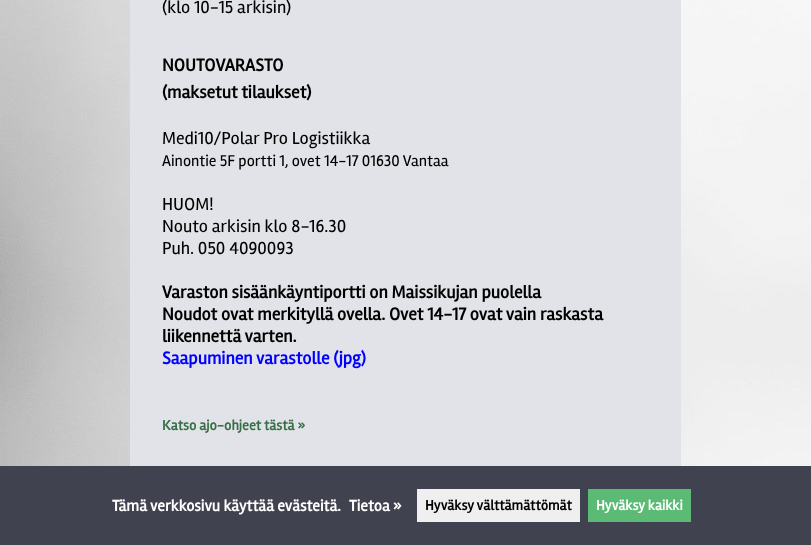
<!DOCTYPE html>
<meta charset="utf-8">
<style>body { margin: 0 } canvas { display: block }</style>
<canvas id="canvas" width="811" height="545"></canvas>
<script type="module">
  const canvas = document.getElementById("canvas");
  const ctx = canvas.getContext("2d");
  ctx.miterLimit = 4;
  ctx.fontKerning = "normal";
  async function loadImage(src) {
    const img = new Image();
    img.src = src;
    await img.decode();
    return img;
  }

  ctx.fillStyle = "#ffffff";
  ctx.fillRect(0, 0, 811, 545);
  ctx.drawImage(await loadImage("img1.png"), 0, 0, 811, 466);
  ctx.fillStyle = "#e2e3e8";
  ctx.fillRect(130, 0, 551, 466);
  ctx.font = "18px Rambla";
  ctx.fillStyle = "#000000";
  ctx.fillText("(klo 10-15 arkisin)", 162, 13);
  ctx.font = "bold 18px Rambla";
  ctx.fillText("NOUTOVARASTO", 162, 71);
  ctx.fillText("(maksetut tilaukset)", 162, 98);
  ctx.font = "18px Rambla";
  ctx.fillText("Medi10/Polar Pro Logistiikka", 162, 144);
  ctx.font = "16px Rambla";
  ctx.fillText("Ainontie 5F portti 1, ovet 14-17 01630 Vantaa", 162, 166);
  ctx.font = "18px Rambla";
  ctx.fillText("HUOM!", 162, 210);
  ctx.fillText("Nouto arkisin klo 8-16.30", 162, 232);
  ctx.fillText("Puh. 050 4090093", 162, 254);
  ctx.font = "bold 18px Rambla";
  ctx.fillText("Varaston sisäänkäyntiportti on Maissikujan puolella", 162, 298);
  ctx.fillText("Noudot ovat merkityllä ovella. Ovet 14-17 ovat vain raskasta", 162, 320);
  ctx.fillText("liikennettä varten.", 162, 342);
  ctx.fillStyle = "#0000ff";
  ctx.fillText("Saapuminen varastolle (jpg)", 162, 364);
  ctx.font = "bold 14.4px Rambla";
  ctx.fillStyle = "#366f45";
  ctx.fillText("Katso ajo-ohjeet tästä »", 162, 430);
  ctx.fillStyle = "#41424f";
  ctx.fillRect(0, 466, 811, 79);
  ctx.font = "bold 16px Rambla";
  ctx.fillStyle = "#ffffff";
  ctx.fillText("Tämä verkkosivu käyttää evästeitä.", 112, 511);
  ctx.fillText("Tietoa »", 349, 511);
  ctx.fillStyle = "#efefef";
  ctx.fillRect(417, 489, 163, 33);
  ctx.font = "bold 14.4px Rambla";
  ctx.fillStyle = "#000000";
  ctx.fillText("Hyväksy välttämättömät", 425, 510);
  ctx.fillStyle = "#5bba74";
  ctx.fillRect(588, 489, 103, 33);
  ctx.fillStyle = "#ffffff";
  ctx.fillText("Hyväksy kaikki", 596, 510);
</script>
